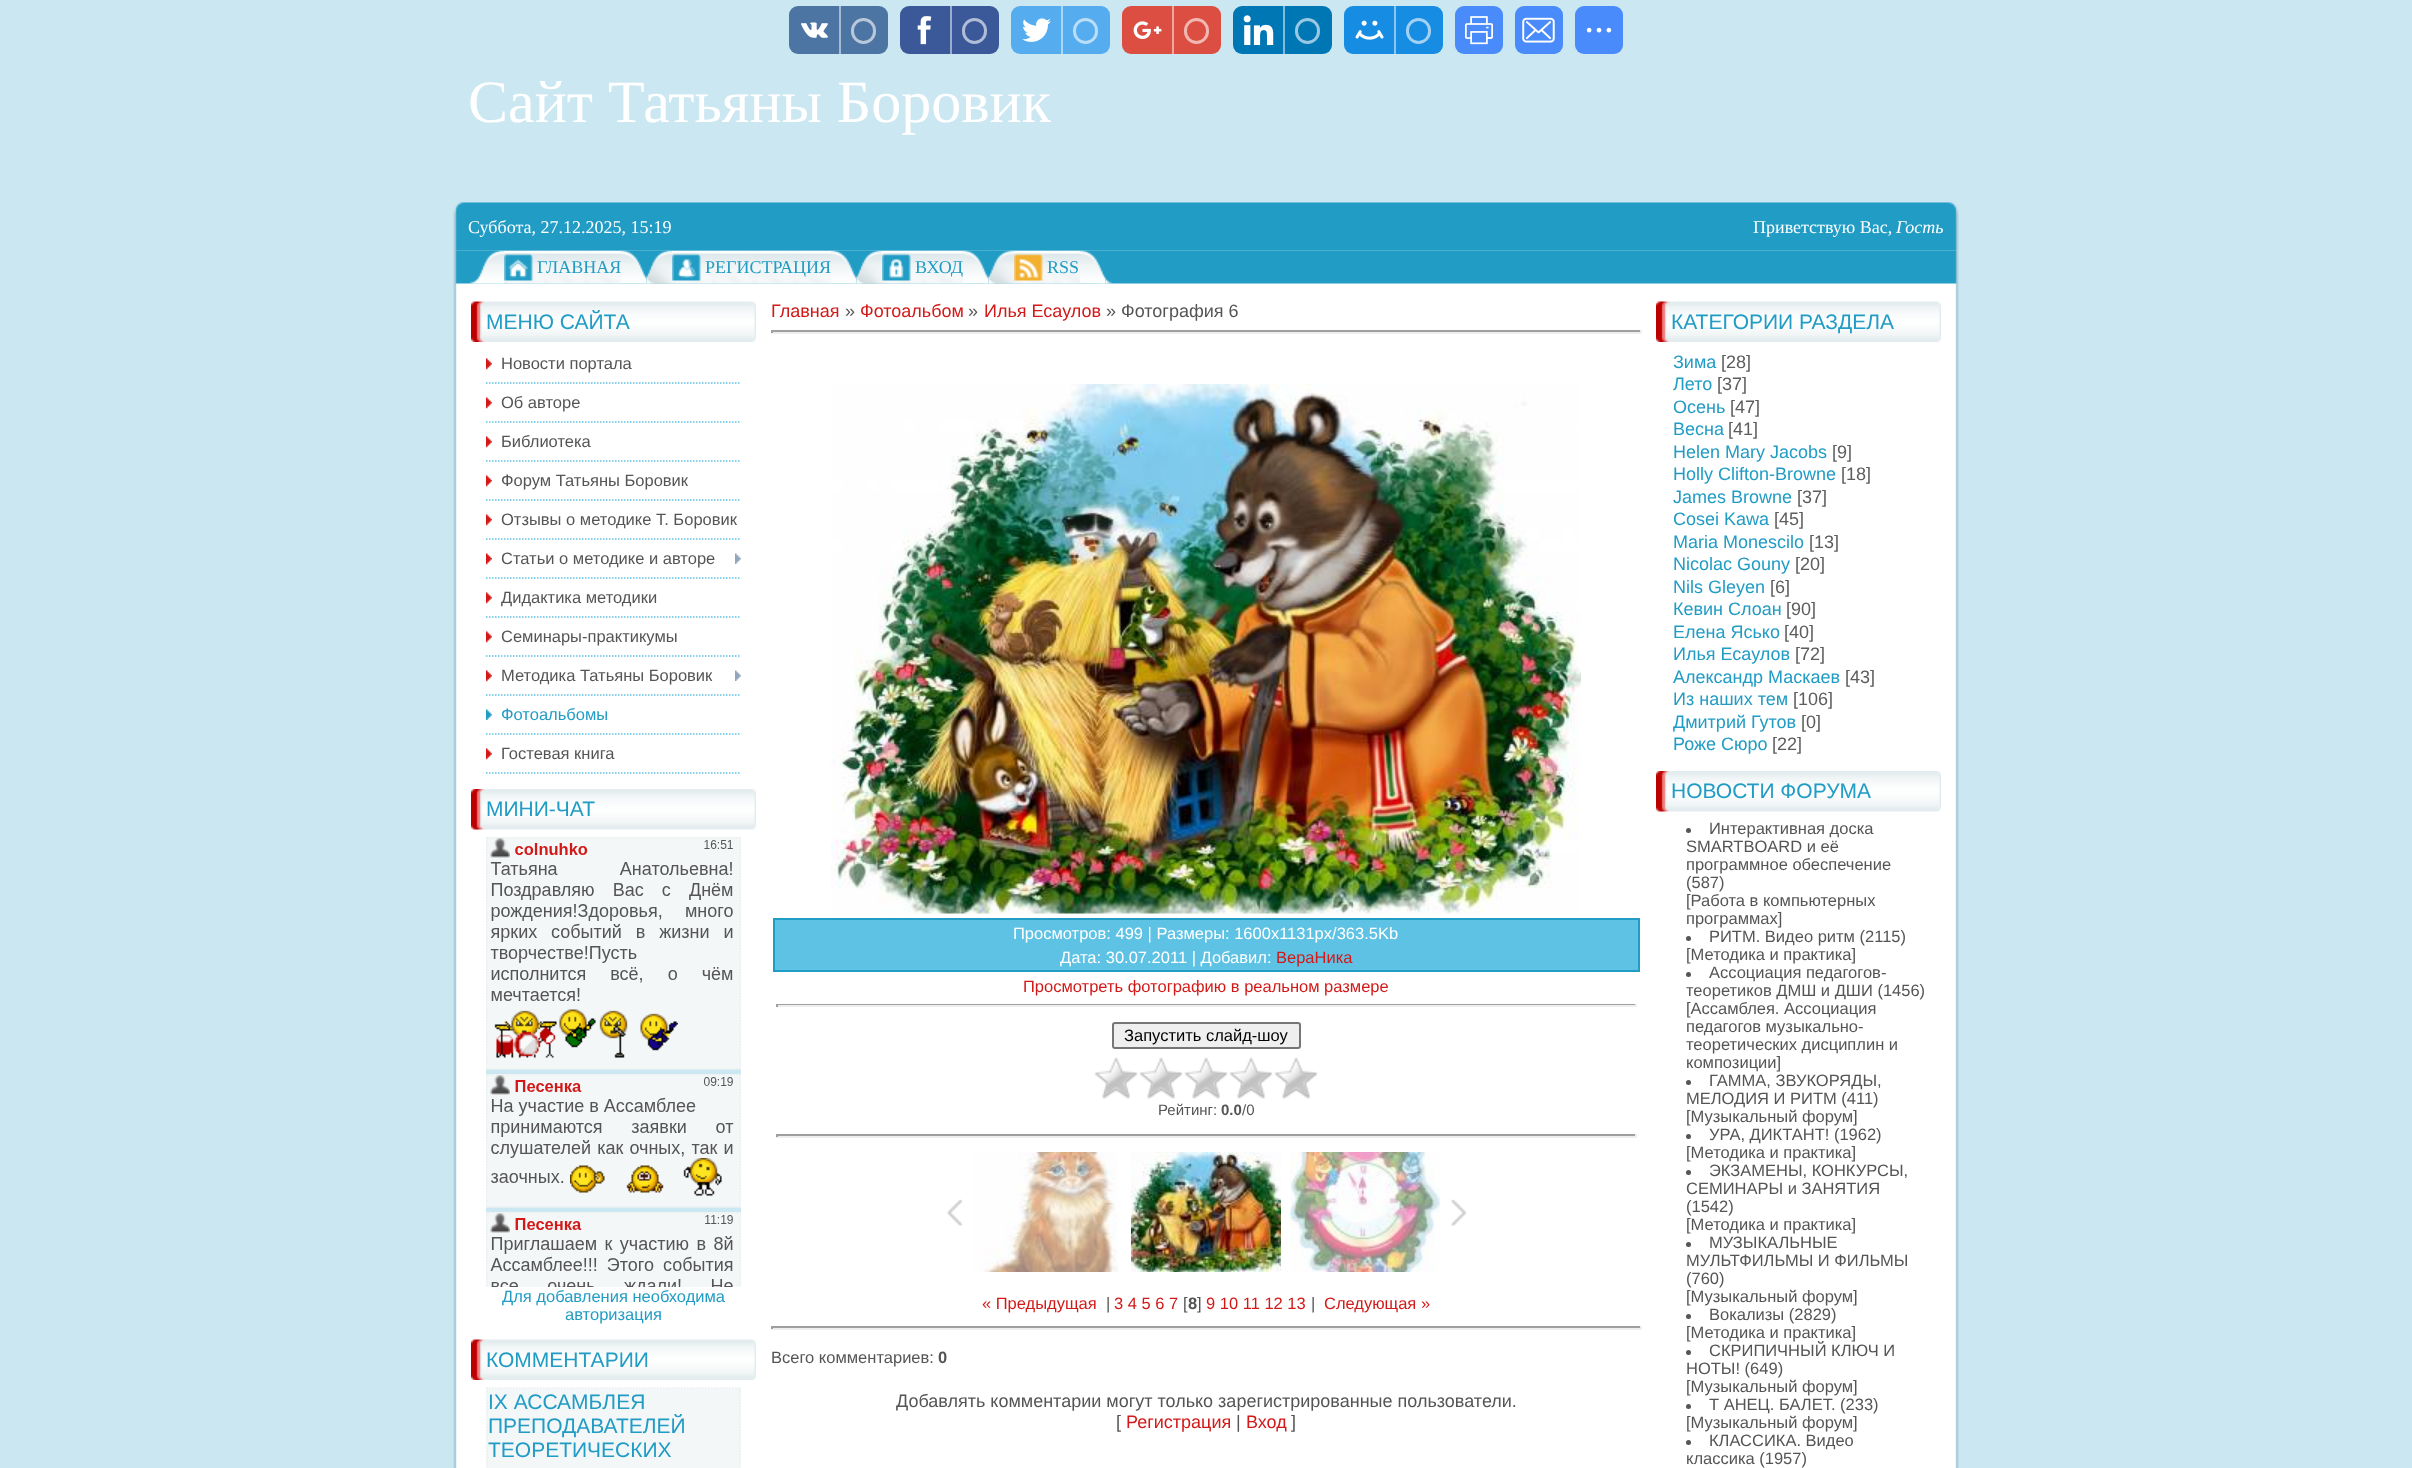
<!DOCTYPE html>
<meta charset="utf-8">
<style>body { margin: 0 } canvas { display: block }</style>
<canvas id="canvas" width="2412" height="1468"></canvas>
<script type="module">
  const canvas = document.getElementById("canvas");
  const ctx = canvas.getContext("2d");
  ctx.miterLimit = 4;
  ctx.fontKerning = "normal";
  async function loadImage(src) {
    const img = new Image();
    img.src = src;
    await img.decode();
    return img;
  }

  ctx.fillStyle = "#cbe7f1";
  ctx.fillRect(0, 0, 2412, 1468);
  ctx.fillStyle = "#4d75a3";
  ctx.beginPath();
  ctx.roundRect(789, 6, 99, 48, 9);
  ctx.fill();
  ctx.drawImage(await loadImage("img1.png"), 801, 22, 27, 16);
  ctx.fillStyle = "#a6bad1";
  ctx.fillRect(839, 6, 2, 48);
  ctx.beginPath();
  ctx.roundRect(852.5, 19.5, 22, 23, 11);
  ctx.strokeStyle = "#b8c8da";
  ctx.lineWidth = 3;
  ctx.stroke();
  ctx.fillStyle = "#3b5998";
  ctx.beginPath();
  ctx.roundRect(900, 6, 99, 48, 9);
  ctx.fill();
  ctx.drawImage(await loadImage("img2.png"), 917, 16, 15, 29);
  ctx.fillStyle = "#9daccc";
  ctx.fillRect(950, 6, 2, 48);
  ctx.beginPath();
  ctx.roundRect(963.5, 19.5, 22, 23, 11);
  ctx.strokeStyle = "#b1bdd6";
  ctx.stroke();
  ctx.fillStyle = "#55acee";
  ctx.beginPath();
  ctx.roundRect(1011, 6, 99, 48, 9);
  ctx.fill();
  ctx.drawImage(await loadImage("img3.png"), 1022, 18, 29, 24);
  ctx.fillStyle = "#aad6f7";
  ctx.fillRect(1061, 6, 2, 48);
  ctx.beginPath();
  ctx.roundRect(1074.5, 19.5, 22, 23, 11);
  ctx.strokeStyle = "#bbdef8";
  ctx.stroke();
  ctx.fillStyle = "#dc4e41";
  ctx.beginPath();
  ctx.roundRect(1122, 6, 99, 48, 9);
  ctx.fill();
  ctx.drawImage(await loadImage("img4.png"), 1133, 21, 29, 18);
  ctx.fillStyle = "#eea7a0";
  ctx.fillRect(1172, 6, 2, 48);
  ctx.beginPath();
  ctx.roundRect(1185.5, 19.5, 22, 23, 11);
  ctx.strokeStyle = "#f1b8b3";
  ctx.stroke();
  ctx.fillStyle = "#0077b5";
  ctx.beginPath();
  ctx.roundRect(1233, 6, 99, 48, 9);
  ctx.fill();
  ctx.drawImage(await loadImage("img5.png"), 1243, 15, 31, 30);
  ctx.fillStyle = "#80bbda";
  ctx.fillRect(1283, 6, 2, 48);
  ctx.beginPath();
  ctx.roundRect(1296.5, 19.5, 22, 23, 11);
  ctx.strokeStyle = "#99c9e1";
  ctx.stroke();
  ctx.fillStyle = "#168de2";
  ctx.beginPath();
  ctx.roundRect(1344, 6, 99, 48, 9);
  ctx.fill();
  ctx.drawImage(await loadImage("img6.png"), 1355, 20, 29, 20);
  ctx.fillStyle = "#8bc6f1";
  ctx.fillRect(1394, 6, 2, 48);
  ctx.beginPath();
  ctx.roundRect(1407.5, 19.5, 22, 23, 11);
  ctx.strokeStyle = "#a2d1f3";
  ctx.stroke();
  ctx.fillStyle = "#498bfa";
  ctx.beginPath();
  ctx.roundRect(1455, 6, 48, 48, 9);
  ctx.fill();
  ctx.drawImage(await loadImage("img7.png"), 1465, 16, 28, 29);
  ctx.beginPath();
  ctx.roundRect(1515, 6, 48, 48, 9);
  ctx.fill();
  ctx.drawImage(await loadImage("img8.png"), 1522, 17, 33, 26);
  ctx.beginPath();
  ctx.roundRect(1575, 6, 48, 48, 9);
  ctx.fill();
  ctx.drawImage(await loadImage("img9.png"), 1586, 27, 26, 6);
  ctx.font = "60px Liberation Serif";
  ctx.fillStyle = "#ffffff";
  ctx.fillText("Сайт Татьяны Боровик", 468, 122);
  ctx.drawImage(await loadImage("img11.png"), 453, 250, 1506, 35);
  ctx.drawImage(await loadImage("img12.png"), 469, 250, 35, 34);
  ctx.drawImage(await loadImage("img13.png"), 504, 250, 117, 34);
  ctx.drawImage(await loadImage("img15.png"), 621, 250, 26, 34);
  ctx.drawImage(await loadImage("img16.png"), 646, 250, 26, 34);
  ctx.drawImage(await loadImage("img17.png"), 672, 250, 159, 34);
  ctx.drawImage(await loadImage("img15.png"), 831, 250, 26, 34);
  ctx.drawImage(await loadImage("img19.png"), 856, 250, 26, 34);
  ctx.drawImage(await loadImage("img20.png"), 882, 250, 81, 34);
  ctx.drawImage(await loadImage("img15.png"), 963, 250, 26, 34);
  ctx.drawImage(await loadImage("img19.png"), 988, 250, 26, 34);
  ctx.drawImage(await loadImage("img22.png"), 1014, 250, 66, 34);
  ctx.drawImage(await loadImage("img24.png"), 1080, 250, 26, 34);
  ctx.drawImage(await loadImage("img10.png"), 453, 202, 1506, 49);
  ctx.font = "18px Liberation Serif";
  ctx.fillText("Суббота, 27.12.2025, 15:19", 468, 233);
  ctx.fillText("Приветствую Вас,", 1753, 233);
  ctx.font = "italic 18px Liberation Serif";
  ctx.fillText("Гость", 1896, 233);
  ctx.drawImage(await loadImage("img14.png"), 504, 253, 29, 28);
  ctx.font = "18px Liberation Serif";
  ctx.fillStyle = "#219cc5";
  ctx.fillText("ГЛАВНАЯ", 537, 273);
  ctx.drawImage(await loadImage("img18.png"), 672, 253, 29, 28);
  ctx.fillText("РЕГИСТРАЦИЯ", 705, 273);
  ctx.drawImage(await loadImage("img21.png"), 882, 253, 29, 28);
  ctx.fillText("ВХОД", 915, 273);
  ctx.drawImage(await loadImage("img23.png"), 1014, 253, 29, 28);
  ctx.fillText("RSS", 1047, 273);
  ctx.drawImage(await loadImage("img25.png"), 1105, 278, 8, 6);
  ctx.drawImage(await loadImage("img26.png"), 453, 285, 1506, 1183);
  ctx.drawImage(await loadImage("img27.png"), 471, 301, 285, 41);
  ctx.font = "21px Liberation Sans";
  ctx.fillText("МЕНЮ САЙТА", 486, 329);
  ctx.beginPath();
  ctx.moveTo(486, 383);
  ctx.lineTo(741, 383);
  ctx.strokeStyle = "#5ec2e4";
  ctx.lineWidth = 1.5;
  ctx.setLineDash([1.5, 1.5]);
  ctx.stroke();
  ctx.drawImage(await loadImage("img28.png"), 486, 358, 6, 12);
  ctx.font = "16.5px Liberation Sans";
  ctx.fillStyle = "#555555";
  ctx.fillText("Новости портала", 501, 369);
  ctx.beginPath();
  ctx.moveTo(486, 422);
  ctx.lineTo(741, 422);
  ctx.stroke();
  ctx.drawImage(await loadImage("img28.png"), 486, 397, 6, 12);
  ctx.fillText("Об авторе", 501, 408);
  ctx.beginPath();
  ctx.moveTo(486, 461);
  ctx.lineTo(741, 461);
  ctx.stroke();
  ctx.drawImage(await loadImage("img28.png"), 486, 436, 6, 12);
  ctx.fillText("Библиотека", 501, 447);
  ctx.beginPath();
  ctx.moveTo(486, 500);
  ctx.lineTo(741, 500);
  ctx.stroke();
  ctx.drawImage(await loadImage("img28.png"), 486, 475, 6, 12);
  ctx.fillText("Форум Татьяны Боровик", 501, 486);
  ctx.beginPath();
  ctx.moveTo(486, 539);
  ctx.lineTo(741, 539);
  ctx.stroke();
  ctx.drawImage(await loadImage("img28.png"), 486, 514, 6, 12);
  ctx.fillText("Отзывы о методике Т. Боровик", 501, 525);
  ctx.beginPath();
  ctx.moveTo(486, 578);
  ctx.lineTo(741, 578);
  ctx.stroke();
  ctx.drawImage(await loadImage("img28.png"), 486, 553, 6, 12);
  ctx.fillText("Статьи о методике и авторе", 501, 564);
  ctx.drawImage(await loadImage("img29.png"), 735, 553, 6, 11);
  ctx.beginPath();
  ctx.moveTo(486, 617);
  ctx.lineTo(741, 617);
  ctx.stroke();
  ctx.drawImage(await loadImage("img28.png"), 486, 592, 6, 12);
  ctx.fillText("Дидактика методики", 501, 603);
  ctx.beginPath();
  ctx.moveTo(486, 656);
  ctx.lineTo(741, 656);
  ctx.stroke();
  ctx.drawImage(await loadImage("img28.png"), 486, 631, 6, 12);
  ctx.fillText("Семинары-практикумы", 501, 642);
  ctx.beginPath();
  ctx.moveTo(486, 695);
  ctx.lineTo(741, 695);
  ctx.stroke();
  ctx.drawImage(await loadImage("img28.png"), 486, 670, 6, 12);
  ctx.fillText("Методика Татьяны Боровик", 501, 681);
  ctx.drawImage(await loadImage("img29.png"), 735, 670, 6, 11);
  ctx.beginPath();
  ctx.moveTo(486, 734);
  ctx.lineTo(741, 734);
  ctx.stroke();
  ctx.drawImage(await loadImage("img30.png"), 486, 709, 6, 11);
  ctx.fillStyle = "#219cc5";
  ctx.fillText("Фотоальбомы", 501, 720);
  ctx.beginPath();
  ctx.moveTo(486, 773);
  ctx.lineTo(741, 773);
  ctx.stroke();
  ctx.drawImage(await loadImage("img28.png"), 486, 748, 6, 12);
  ctx.fillStyle = "#555555";
  ctx.fillText("Гостевая книга", 501, 759);
  ctx.drawImage(await loadImage("img31.png"), 471, 789, 285, 41);
  ctx.font = "21px Liberation Sans";
  ctx.fillStyle = "#219cc5";
  ctx.fillText("МИНИ-ЧАТ", 486, 816);
  ctx.drawImage(await loadImage("img32.png"), 486, 837, 255, 450);
  ctx.font = "16.5px Liberation Sans";
  ctx.fillText("Для добавления необходима", 502, 1302);
  ctx.fillText("авторизация", 565, 1320);
  ctx.drawImage(await loadImage("img27.png"), 471, 1339, 285, 41);
  ctx.font = "21px Liberation Sans";
  ctx.fillText("КОММЕНТАРИИ", 486, 1367);
  ctx.fillStyle = "#f4f7f8";
  ctx.fillRect(486, 1388, 255, 80);
  ctx.beginPath();
  ctx.moveTo(486, 1388);
  ctx.lineTo(741, 1388);
  ctx.strokeStyle = "#eceff0";
  ctx.stroke();
  ctx.beginPath();
  ctx.moveTo(740, 1387.5);
  ctx.lineTo(740, 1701);
  ctx.stroke();
  ctx.beginPath();
  ctx.moveTo(487, 1387.5);
  ctx.lineTo(487, 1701);
  ctx.stroke();
  ctx.fillStyle = "#219cc5";
  ctx.fillText("IX АССАМБЛЕЯ", 488, 1409);
  ctx.fillText("ПРЕПОДАВАТЕЛЕЙ", 488, 1433);
  ctx.fillText("ТЕОРЕТИЧЕСКИХ", 488, 1457);
  ctx.font = "18px Liberation Sans";
  ctx.fillStyle = "#d21918";
  ctx.fillText("Главная", 771, 317);
  ctx.fillStyle = "#555555";
  ctx.fillText("»", 845, 317);
  ctx.fillStyle = "#d21918";
  ctx.fillText("Фотоальбом", 860, 317);
  ctx.fillStyle = "#555555";
  ctx.fillText("»", 968, 317);
  ctx.fillStyle = "#d21918";
  ctx.fillText("Илья Есаулов", 984, 317);
  ctx.fillStyle = "#555555";
  ctx.fillText("» Фотография 6", 1106, 317);
  ctx.fillStyle = "#9f9f9f";
  ctx.fillRect(771, 330, 870, 2);
  ctx.fillStyle = "#eeeeee";
  ctx.fillRect(1640, 330, 2, 3);
  ctx.fillRect(771, 332, 870, 2);
  ctx.fillStyle = "#9f9f9f";
  ctx.fillRect(771, 330, 2, 3);
  ctx.drawImage(await loadImage("img33.png"), 831, 384, 750, 530);
  ctx.fillStyle = "#5ec2e4";
  ctx.beginPath();
  ctx.rect(774, 919, 865, 52);
  ctx.fill();
  ctx.strokeStyle = "#219cc5";
  ctx.lineWidth = 2;
  ctx.setLineDash([]);
  ctx.stroke();
  ctx.font = "16.5px Liberation Sans";
  ctx.fillStyle = "#ffffff";
  ctx.fillText("Просмотров: 499 | Размеры: 1600x1131px/363.5Kb", 1013, 939);
  ctx.fillText("Дата: 30.07.2011 | Добавил:", 1060, 963);
  ctx.fillStyle = "#d21918";
  ctx.fillText("ВераНика", 1276, 963);
  ctx.fillText("Просмотреть фотографию в реальном размере", 1023, 992);
  ctx.fillStyle = "#9f9f9f";
  ctx.fillRect(776, 1004, 861, 1);
  ctx.fillStyle = "#eeeeee";
  ctx.fillRect(1635, 1004, 2, 3);
  ctx.fillRect(776, 1005, 861, 2);
  ctx.fillStyle = "#9f9f9f";
  ctx.fillRect(776, 1004, 2, 3);
  ctx.fillStyle = "#efefef";
  ctx.beginPath();
  ctx.roundRect(1113, 1023, 187, 25, 2);
  ctx.fill();
  ctx.strokeStyle = "#767676";
  ctx.stroke();
  ctx.fillStyle = "#000000";
  ctx.fillText("Запустить слайд-шоу", 1124, 1041);
  ctx.drawImage(await loadImage("img34.png"), 1094, 1057, 224, 42);
  ctx.font = "15px Liberation Sans";
  ctx.fillStyle = "#555555";
  ctx.fillText("Рейтинг:", 1158, 1115);
  ctx.font = "bold 15px Liberation Sans";
  ctx.fillText("0.0", 1221, 1115);
  ctx.font = "15px Liberation Sans";
  ctx.fillText("/0", 1242, 1115);
  ctx.fillStyle = "#9f9f9f";
  ctx.fillRect(776, 1134, 861, 2);
  ctx.fillStyle = "#eeeeee";
  ctx.fillRect(1635, 1134, 2, 3);
  ctx.fillRect(776, 1136, 861, 2);
  ctx.fillStyle = "#9f9f9f";
  ctx.fillRect(776, 1134, 2, 3);
  ctx.drawImage(await loadImage("img35.png"), 946, 1199, 17, 27);
  ctx.drawImage(await loadImage("img36.png"), 972, 1152, 147, 120);
  ctx.drawImage(await loadImage("img37.png"), 1131, 1152, 150, 120);
  ctx.drawImage(await loadImage("img38.png"), 1290, 1152, 150, 120);
  ctx.drawImage(await loadImage("img39.png"), 1450, 1199, 17, 27);
  ctx.font = "16.5px Liberation Sans";
  ctx.fillStyle = "#d21918";
  ctx.fillText("« Предыдущая", 982, 1309);
  ctx.fillStyle = "#555555";
  ctx.fillText("|", 1106, 1309);
  ctx.fillStyle = "#d21918";
  ctx.fillText("3 4 5 6 7", 1114, 1309);
  ctx.fillStyle = "#555555";
  ctx.fillText("[", 1183, 1309);
  ctx.font = "bold 16.5px Liberation Sans";
  ctx.fillText("8", 1188, 1309);
  ctx.font = "16.5px Liberation Sans";
  ctx.fillText("]", 1197, 1309);
  ctx.fillStyle = "#d21918";
  ctx.fillText("9 10 11 12 13", 1206, 1309);
  ctx.fillStyle = "#555555";
  ctx.fillText("|", 1311, 1309);
  ctx.fillStyle = "#d21918";
  ctx.fillText("Следующая »", 1324, 1309);
  ctx.fillStyle = "#9f9f9f";
  ctx.fillRect(771, 1326, 870, 2);
  ctx.fillStyle = "#eeeeee";
  ctx.fillRect(1640, 1326, 2, 3);
  ctx.fillRect(771, 1328, 870, 2);
  ctx.fillStyle = "#9f9f9f";
  ctx.fillRect(771, 1326, 2, 3);
  ctx.fillStyle = "#555555";
  ctx.fillText("Всего комментариев:", 771, 1363);
  ctx.font = "bold 16.5px Liberation Sans";
  ctx.fillText("0", 938, 1363);
  ctx.font = "18px Liberation Sans";
  ctx.fillText("Добавлять комментарии могут только зарегистрированные пользователи.", 896, 1407);
  ctx.fillText("[", 1116, 1428);
  ctx.fillStyle = "#d21918";
  ctx.fillText("Регистрация", 1126, 1428);
  ctx.fillStyle = "#555555";
  ctx.fillText("|", 1236, 1428);
  ctx.fillStyle = "#d21918";
  ctx.fillText("Вход", 1246, 1428);
  ctx.fillStyle = "#555555";
  ctx.fillText("]", 1291, 1428);
  ctx.drawImage(await loadImage("img40.png"), 1656, 301, 285, 41);
  ctx.font = "21px Liberation Sans";
  ctx.fillStyle = "#219cc5";
  ctx.fillText("КАТЕГОРИИ РАЗДЕЛА", 1671, 329);
  ctx.font = "18px Liberation Sans";
  ctx.fillText("Зима", 1673, 368);
  ctx.fillStyle = "#5d5d5d";
  ctx.fillText("[28]", 1721, 368);
  ctx.fillStyle = "#219cc5";
  ctx.fillText("Лето", 1673, 390);
  ctx.fillStyle = "#5d5d5d";
  ctx.fillText("[37]", 1717, 390);
  ctx.fillStyle = "#219cc5";
  ctx.fillText("Осень", 1673, 413);
  ctx.fillStyle = "#5d5d5d";
  ctx.fillText("[47]", 1730, 413);
  ctx.fillStyle = "#219cc5";
  ctx.fillText("Весна", 1673, 435);
  ctx.fillStyle = "#5d5d5d";
  ctx.fillText("[41]", 1728, 435);
  ctx.fillStyle = "#219cc5";
  ctx.fillText("Helen Mary Jacobs", 1673, 458);
  ctx.fillStyle = "#5d5d5d";
  ctx.fillText("[9]", 1832, 458);
  ctx.fillStyle = "#219cc5";
  ctx.fillText("Holly Clifton-Browne", 1673, 480);
  ctx.fillStyle = "#5d5d5d";
  ctx.fillText("[18]", 1841, 480);
  ctx.fillStyle = "#219cc5";
  ctx.fillText("James Browne", 1673, 503);
  ctx.fillStyle = "#5d5d5d";
  ctx.fillText("[37]", 1797, 503);
  ctx.fillStyle = "#219cc5";
  ctx.fillText("Cosei Kawa", 1673, 525);
  ctx.fillStyle = "#5d5d5d";
  ctx.fillText("[45]", 1774, 525);
  ctx.fillStyle = "#219cc5";
  ctx.fillText("Maria Monescilo", 1673, 548);
  ctx.fillStyle = "#5d5d5d";
  ctx.fillText("[13]", 1809, 548);
  ctx.fillStyle = "#219cc5";
  ctx.fillText("Nicolac Gouny", 1673, 570);
  ctx.fillStyle = "#5d5d5d";
  ctx.fillText("[20]", 1795, 570);
  ctx.fillStyle = "#219cc5";
  ctx.fillText("Nils Gleyen", 1673, 593);
  ctx.fillStyle = "#5d5d5d";
  ctx.fillText("[6]", 1770, 593);
  ctx.fillStyle = "#219cc5";
  ctx.fillText("Кевин Слоан", 1673, 615);
  ctx.fillStyle = "#5d5d5d";
  ctx.fillText("[90]", 1786, 615);
  ctx.fillStyle = "#219cc5";
  ctx.fillText("Елена Ясько", 1673, 638);
  ctx.fillStyle = "#5d5d5d";
  ctx.fillText("[40]", 1784, 638);
  ctx.fillStyle = "#219cc5";
  ctx.fillText("Илья Есаулов", 1673, 660);
  ctx.fillStyle = "#5d5d5d";
  ctx.fillText("[72]", 1795, 660);
  ctx.fillStyle = "#219cc5";
  ctx.fillText("Александр Маскаев", 1673, 683);
  ctx.fillStyle = "#5d5d5d";
  ctx.fillText("[43]", 1845, 683);
  ctx.fillStyle = "#219cc5";
  ctx.fillText("Из наших тем", 1673, 705);
  ctx.fillStyle = "#5d5d5d";
  ctx.fillText("[106]", 1793, 705);
  ctx.fillStyle = "#219cc5";
  ctx.fillText("Дмитрий Гутов", 1673, 728);
  ctx.fillStyle = "#5d5d5d";
  ctx.fillText("[0]", 1801, 728);
  ctx.fillStyle = "#219cc5";
  ctx.fillText("Роже Сюро", 1673, 750);
  ctx.fillStyle = "#5d5d5d";
  ctx.fillText("[22]", 1772, 750);
  ctx.drawImage(await loadImage("img41.png"), 1656, 771, 285, 41);
  ctx.font = "21px Liberation Sans";
  ctx.fillStyle = "#219cc5";
  ctx.fillText("НОВОСТИ ФОРУМА", 1671, 798);
  ctx.fillStyle = "#555555";
  ctx.beginPath();
  ctx.arc(1688.5, 830.5, 2.5, 0, Math.PI * 2);
  ctx.fill();
  ctx.font = "16.5px Liberation Sans";
  ctx.fillText("Интерактивная доска", 1709, 834);
  ctx.fillText("SMARTBOARD и её", 1686, 852);
  ctx.fillText("программное обеспечение", 1686, 870);
  ctx.fillText("(587)", 1686, 888);
  ctx.fillText("[Работа в компьютерных", 1686, 906);
  ctx.fillText("программах]", 1686, 924);
  ctx.beginPath();
  ctx.arc(1688.5, 938.5, 2.5, 0, Math.PI * 2);
  ctx.fill();
  ctx.fillText("РИТМ. Видео ритм (2115)", 1709, 942);
  ctx.fillText("[Методика и практика]", 1686, 960);
  ctx.beginPath();
  ctx.arc(1688.5, 974.5, 2.5, 0, Math.PI * 2);
  ctx.fill();
  ctx.fillText("Ассоциация педагогов-", 1709, 978);
  ctx.fillText("теоретиков ДМШ и ДШИ (1456)", 1686, 996);
  ctx.fillText("[Ассамблея. Ассоциация", 1686, 1014);
  ctx.fillText("педагогов музыкально-", 1686, 1032);
  ctx.fillText("теоретических дисциплин и", 1686, 1050);
  ctx.fillText("композиции]", 1686, 1068);
  ctx.beginPath();
  ctx.arc(1688.5, 1082.5, 2.5, 0, Math.PI * 2);
  ctx.fill();
  ctx.fillText("ГАММА, ЗВУКОРЯДЫ,", 1709, 1086);
  ctx.fillText("МЕЛОДИЯ И РИТМ (411)", 1686, 1104);
  ctx.fillText("[Музыкальный форум]", 1686, 1122);
  ctx.beginPath();
  ctx.arc(1688.5, 1136.5, 2.5, 0, Math.PI * 2);
  ctx.fill();
  ctx.fillText("УРА, ДИКТАНТ! (1962)", 1709, 1140);
  ctx.fillText("[Методика и практика]", 1686, 1158);
  ctx.beginPath();
  ctx.arc(1688.5, 1172.5, 2.5, 0, Math.PI * 2);
  ctx.fill();
  ctx.fillText("ЭКЗАМЕНЫ, КОНКУРСЫ,", 1709, 1176);
  ctx.fillText("СЕМИНАРЫ и ЗАНЯТИЯ", 1686, 1194);
  ctx.fillText("(1542)", 1686, 1212);
  ctx.fillText("[Методика и практика]", 1686, 1230);
  ctx.beginPath();
  ctx.arc(1688.5, 1244.5, 2.5, 0, Math.PI * 2);
  ctx.fill();
  ctx.fillText("МУЗЫКАЛЬНЫЕ", 1709, 1248);
  ctx.fillText("МУЛЬТФИЛЬМЫ И ФИЛЬМЫ", 1686, 1266);
  ctx.fillText("(760)", 1686, 1284);
  ctx.fillText("[Музыкальный форум]", 1686, 1302);
  ctx.beginPath();
  ctx.arc(1688.5, 1316.5, 2.5, 0, Math.PI * 2);
  ctx.fill();
  ctx.fillText("Вокализы (2829)", 1709, 1320);
  ctx.fillText("[Методика и практика]", 1686, 1338);
  ctx.beginPath();
  ctx.arc(1688.5, 1352.5, 2.5, 0, Math.PI * 2);
  ctx.fill();
  ctx.fillText("СКРИПИЧНЫЙ КЛЮЧ И", 1709, 1356);
  ctx.fillText("НОТЫ! (649)", 1686, 1374);
  ctx.fillText("[Музыкальный форум]", 1686, 1392);
  ctx.beginPath();
  ctx.arc(1688.5, 1406.5, 2.5, 0, Math.PI * 2);
  ctx.fill();
  ctx.fillText("Т АНЕЦ. БАЛЕТ. (233)", 1709, 1410);
  ctx.fillText("[Музыкальный форум]", 1686, 1428);
  ctx.beginPath();
  ctx.arc(1688.5, 1442.5, 2.5, 0, Math.PI * 2);
  ctx.fill();
  ctx.fillText("КЛАССИКА. Видео", 1709, 1446);
  ctx.fillText("классика (1957)", 1686, 1464);
</script>
